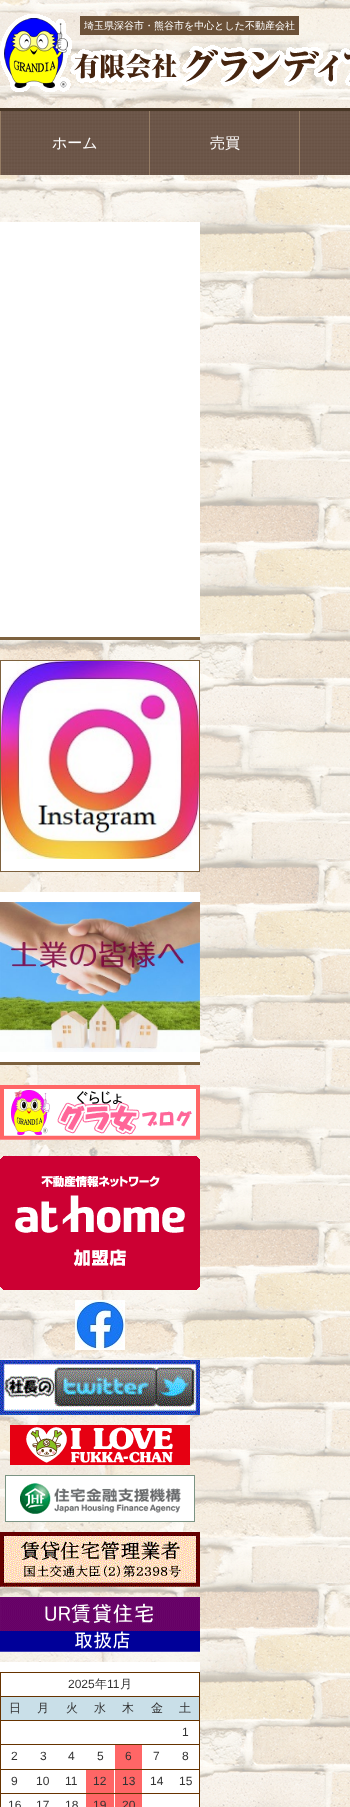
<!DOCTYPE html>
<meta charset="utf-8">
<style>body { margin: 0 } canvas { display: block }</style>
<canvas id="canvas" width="350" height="1807"></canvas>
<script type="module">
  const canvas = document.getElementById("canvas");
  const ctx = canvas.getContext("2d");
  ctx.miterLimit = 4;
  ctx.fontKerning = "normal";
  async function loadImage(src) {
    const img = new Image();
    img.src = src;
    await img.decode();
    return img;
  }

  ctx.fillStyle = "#ffffff";
  ctx.fillRect(0, 0, 350, 1807);
  ctx.drawImage(await loadImage("img1.png"), 0, 0, 350, 1807);
  ctx.drawImage(await loadImage("img2.png"), 0, 14, 350, 78);
  ctx.fillStyle = "#6b5138";
  ctx.fillRect(80, 16, 219, 19);
  ctx.font = "500 10px WenQuanYi Zen Hei";
  ctx.fillStyle = "#ffffff";
  ctx.fillText("埼玉県深谷市・熊谷市を中心とした不動産会社", 84, 29);
  ctx.drawImage(await loadImage("img3.png"), 1, 111, 349, 64);
  ctx.fillStyle = "#473625";
  ctx.fillRect(0, 108, 350, 3);
  ctx.fillStyle = "#967d65";
  ctx.fillRect(149, 111, 1, 64);
  ctx.fillRect(0, 111, 1, 64);
  ctx.font = "500 15px WenQuanYi Zen Hei";
  ctx.fillStyle = "#ffffff";
  ctx.fillText("ホーム", 52, 148);
  ctx.fillStyle = "#967d65";
  ctx.fillRect(299, 111, 1, 64);
  ctx.fillStyle = "#ffffff";
  ctx.fillText("売買", 210, 148);
  ctx.fillRect(0, 222, 200, 415);
  ctx.fillStyle = "#7d613e";
  ctx.fillRect(0, 637, 200, 3);
  ctx.fillStyle = "#ffffff";
  ctx.fillRect(1, 859, 198, 12);
  ctx.strokeStyle = "#7d613e";
  ctx.strokeRect(0.5, 660.5, 199, 211);
  ctx.drawImage(await loadImage("img4.png"), 1, 661, 198, 198);
  ctx.fillRect(0, 892, 200, 170);
  ctx.fillStyle = "#7d613e";
  ctx.fillRect(0, 1062, 200, 3);
  ctx.drawImage(await loadImage("img5.png"), 0, 902, 200, 150);
  ctx.drawImage(await loadImage("img6.png"), 0, 1085, 200, 55);
  ctx.drawImage(await loadImage("img7.png"), 0, 1156, 200, 134);
  ctx.drawImage(await loadImage("img8.png"), 75, 1300, 50, 50);
  ctx.drawImage(await loadImage("img9.png"), 0, 1360, 200, 55);
  ctx.drawImage(await loadImage("img10.png"), 10, 1425, 180, 40);
  ctx.drawImage(await loadImage("img11.png"), 5, 1475, 190, 47);
  ctx.drawImage(await loadImage("img12.png"), 0, 1532, 200, 55);
  ctx.drawImage(await loadImage("img13.png"), 0, 1597, 200, 55);
  ctx.fillStyle = "#ffffff";
  ctx.fillRect(0, 1662, 200, 10);
  ctx.fillStyle = "#663300";
  ctx.fillRect(0, 1672, 200, 135);
  ctx.fillStyle = "#ffffff";
  ctx.fillRect(1, 1673, 198, 23);
  ctx.font = "12px Liberation Sans";
  ctx.fillStyle = "#333333";
  ctx.fillText("2025", 68, 1688);
  ctx.font = "500 12px WenQuanYi Zen Hei";
  ctx.fillText("年", 95, 1688);
  ctx.font = "12px Liberation Sans";
  ctx.fillText("11", 107, 1688);
  ctx.font = "500 12px WenQuanYi Zen Hei";
  ctx.fillText("月", 120, 1688);
  ctx.fillStyle = "#c9dfe8";
  ctx.fillRect(1, 1697, 198, 23);
  ctx.fillStyle = "#333333";
  ctx.fillText("日", 9, 1712);
  ctx.fillText("月", 37, 1712);
  ctx.fillText("火", 66, 1712);
  ctx.fillText("水", 94, 1712);
  ctx.fillText("木", 122, 1712);
  ctx.fillText("金", 151, 1712);
  ctx.fillText("土", 179, 1712);
  ctx.fillStyle = "#ffffff";
  ctx.fillRect(1, 1721, 198, 23);
  ctx.font = "12px Liberation Sans";
  ctx.fillStyle = "#333333";
  ctx.fillText("1", 182, 1736);
  ctx.fillStyle = "#ffffff";
  ctx.fillRect(1, 1745, 198, 24);
  ctx.fillStyle = "#333333";
  ctx.fillText("2", 11, 1760);
  ctx.fillText("3", 40, 1760);
  ctx.fillText("4", 68, 1760);
  ctx.fillText("5", 97, 1760);
  ctx.fillStyle = "#ff6666";
  ctx.fillRect(115, 1745, 27, 24);
  ctx.fillStyle = "#333333";
  ctx.fillText("6", 125, 1760);
  ctx.fillText("7", 153, 1760);
  ctx.fillText("8", 182, 1760);
  ctx.fillStyle = "#ffffff";
  ctx.fillRect(1, 1770, 198, 23);
  ctx.fillStyle = "#333333";
  ctx.fillText("9", 11, 1785);
  ctx.fillText("10", 36, 1785);
  ctx.fillText("11", 65, 1785);
  ctx.fillStyle = "#ff6666";
  ctx.fillRect(86, 1770, 28, 23);
  ctx.fillStyle = "#333333";
  ctx.fillText("12", 93, 1785);
  ctx.fillStyle = "#ff6666";
  ctx.fillRect(115, 1770, 27, 23);
  ctx.fillStyle = "#333333";
  ctx.fillText("13", 122, 1785);
  ctx.fillText("14", 150, 1785);
  ctx.fillText("15", 179, 1785);
  ctx.fillStyle = "#ffffff";
  ctx.fillRect(1, 1794, 198, 13);
  ctx.fillStyle = "#333333";
  ctx.fillText("16", 8, 1809);
  ctx.fillText("17", 36, 1809);
  ctx.fillText("18", 65, 1809);
  ctx.fillStyle = "#ff6666";
  ctx.fillRect(86, 1794, 28, 13);
  ctx.fillStyle = "#333333";
  ctx.fillText("19", 93, 1809);
  ctx.fillStyle = "#ff6666";
  ctx.fillRect(115, 1794, 27, 13);
  ctx.fillStyle = "#333333";
  ctx.fillText("20", 122, 1809);
</script>
